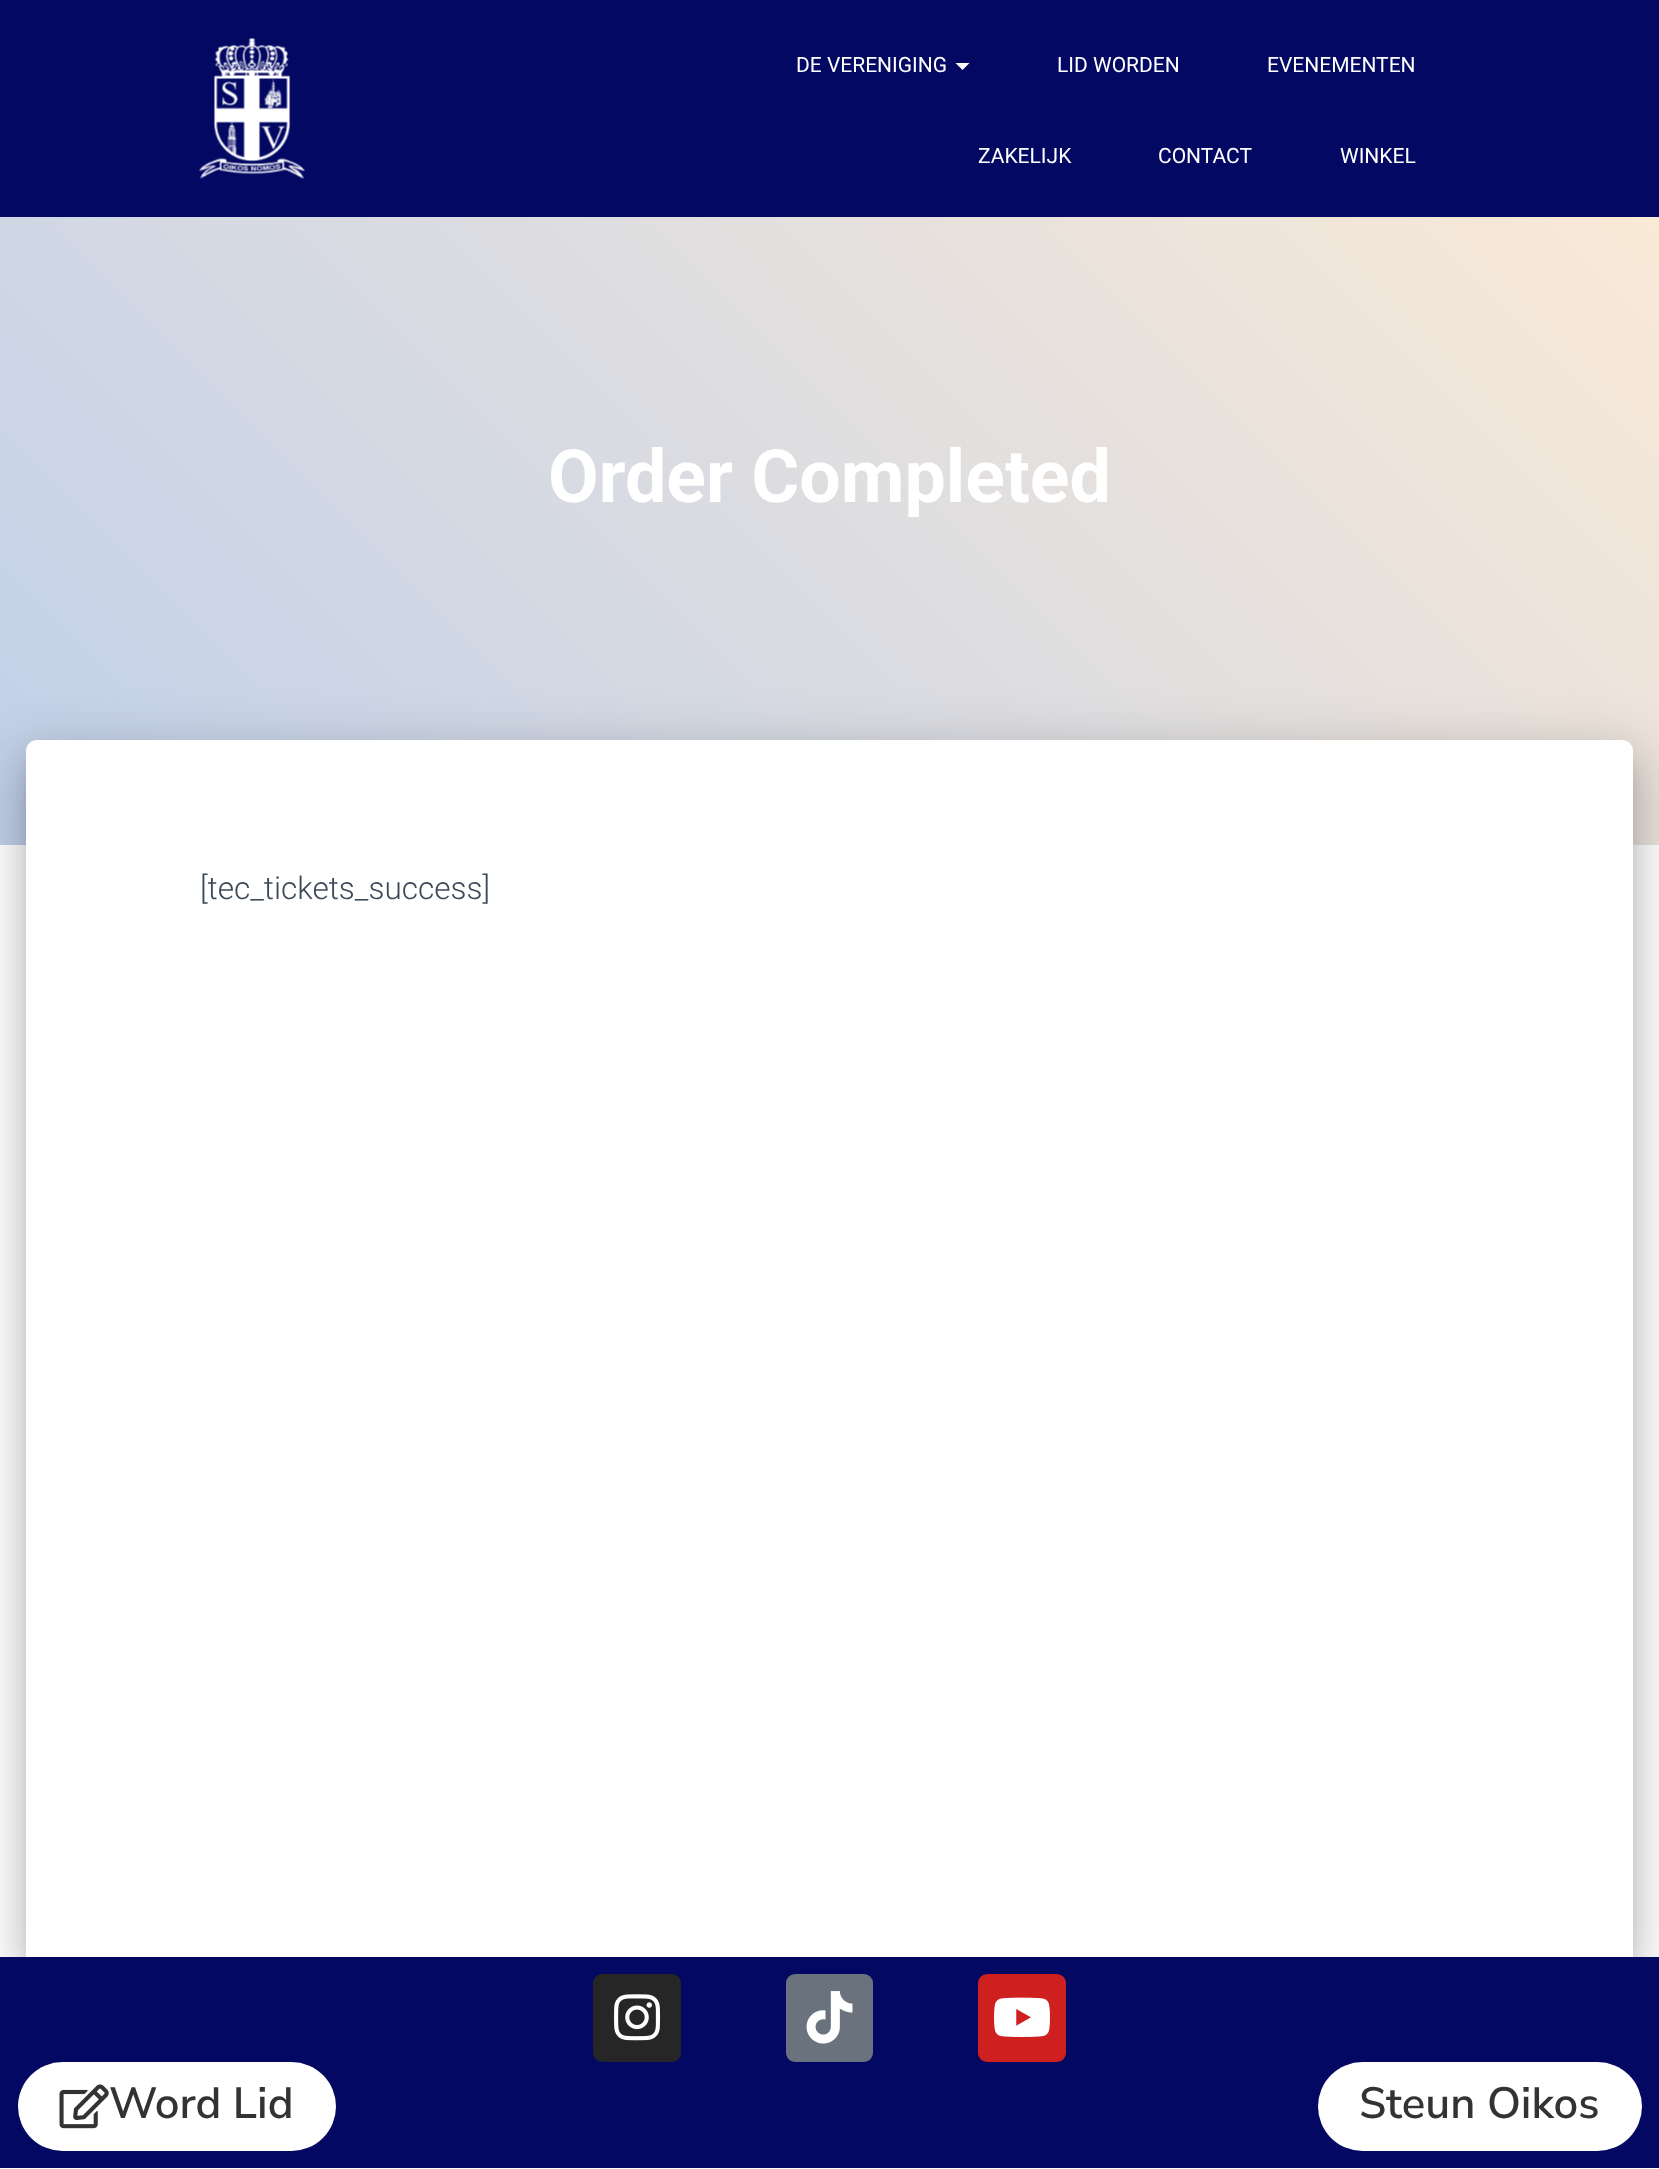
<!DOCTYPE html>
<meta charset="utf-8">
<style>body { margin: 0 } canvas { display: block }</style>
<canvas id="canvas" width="1659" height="2169"></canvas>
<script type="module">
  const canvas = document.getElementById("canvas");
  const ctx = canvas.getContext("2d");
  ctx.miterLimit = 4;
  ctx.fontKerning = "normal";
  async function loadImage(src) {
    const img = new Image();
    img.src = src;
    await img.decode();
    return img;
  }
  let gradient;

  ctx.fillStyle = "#ffffff";
  ctx.fillRect(0, 0, 1659, 2169);
  ctx.fillStyle = "#030863";
  ctx.fillRect(0, 0, 1659, 217);
  ctx.drawImage(await loadImage("img1.png"), 199, 38, 106, 141);
  ctx.font = "21px Roboto";
  ctx.fillStyle = "#ffffff";
  ctx.fillText("DE VERENIGING", 796, 72);
  ctx.beginPath();
  ctx.moveTo(955.5, 63);
  ctx.lineTo(969.5, 63);
  ctx.lineTo(962.5, 70);
  ctx.closePath();
  ctx.fill();
  ctx.fillText("LID WORDEN", 1057, 72);
  ctx.fillText("EVENEMENTEN", 1267, 72);
  ctx.fillText("ZAKELIJK", 978, 163);
  ctx.fillText("CONTACT", 1158, 163);
  ctx.fillText("WINKEL", 1340, 163);
  gradient = ctx.createLinearGradient(203, 1049, 1456, -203);
  gradient.addColorStop(0, "#c0d0ea");
  gradient.addColorStop(1, "#ffecd5");
  ctx.fillStyle = gradient;
  ctx.fillRect(0, 217, 1659, 628);
  ctx.font = "bold 73.5px Roboto";
  ctx.fillStyle = "#ffffff";
  ctx.fillText("Order Completed", 548, 502);
  ctx.fillStyle = "rgba(0, 0, 0, 0.2)";
  ctx.filter = "blur(9px)";
  ctx.beginPath();
  ctx.roundRect(35, 763, 1589, 1199, 2);
  ctx.fill();
  ctx.filter = "none";
  ctx.fillStyle = "rgba(0, 0, 0, 0.12)";
  ctx.filter = "blur(26px)";
  ctx.beginPath();
  ctx.roundRect(18, 742, 1624, 1234, 19);
  ctx.fill();
  ctx.filter = "none";
  ctx.fillStyle = "rgba(0, 0, 0, 0.14)";
  ctx.filter = "blur(21px)";
  ctx.beginPath();
  ctx.roundRect(23, 765, 1613, 1223, 14);
  ctx.fill();
  ctx.filter = "none";
  ctx.fillStyle = "#ffffff";
  ctx.beginPath();
  ctx.roundRect(26, 740, 1607, 1217, [11, 11, 0, 0]);
  ctx.fill();
  ctx.font = "300 31.5px Roboto";
  ctx.fillStyle = "#3c4858";
  ctx.fillText("[tec_tickets_success]", 200, 899);
  ctx.fillStyle = "#030863";
  ctx.fillRect(0, 1957, 1659, 211);
  ctx.fillStyle = "#262626";
  ctx.beginPath();
  ctx.roundRect(593, 1974, 88, 88, 9);
  ctx.fill();
  ctx.drawImage(await loadImage("img2.png"), 614, 1994, 47, 47);
  ctx.fillStyle = "#69727d";
  ctx.beginPath();
  ctx.roundRect(786, 1974, 87, 88, 9);
  ctx.fill();
  ctx.drawImage(await loadImage("img3.png"), 806, 1991, 47, 53);
  ctx.fillStyle = "#cd201f";
  ctx.beginPath();
  ctx.roundRect(978, 1974, 88, 88, 9);
  ctx.fill();
  ctx.drawImage(await loadImage("img4.png"), 994, 1997, 56, 40);
  ctx.fillStyle = "#ffffff";
  ctx.beginPath();
  ctx.roundRect(18, 2062, 318, 89, 44.5);
  ctx.fill();
  ctx.drawImage(await loadImage("img5.png"), 59, 2084, 50, 45);
  ctx.font = "600 43.75px Nunito Sans";
  ctx.fillStyle = "#333333";
  ctx.fillText("Word Lid", 109, 2118);
  ctx.fillStyle = "#ffffff";
  ctx.beginPath();
  ctx.roundRect(1318, 2062, 324, 89, 44.5);
  ctx.fill();
  ctx.fillStyle = "#333333";
  ctx.fillText("Steun Oikos", 1359, 2118);
</script>
